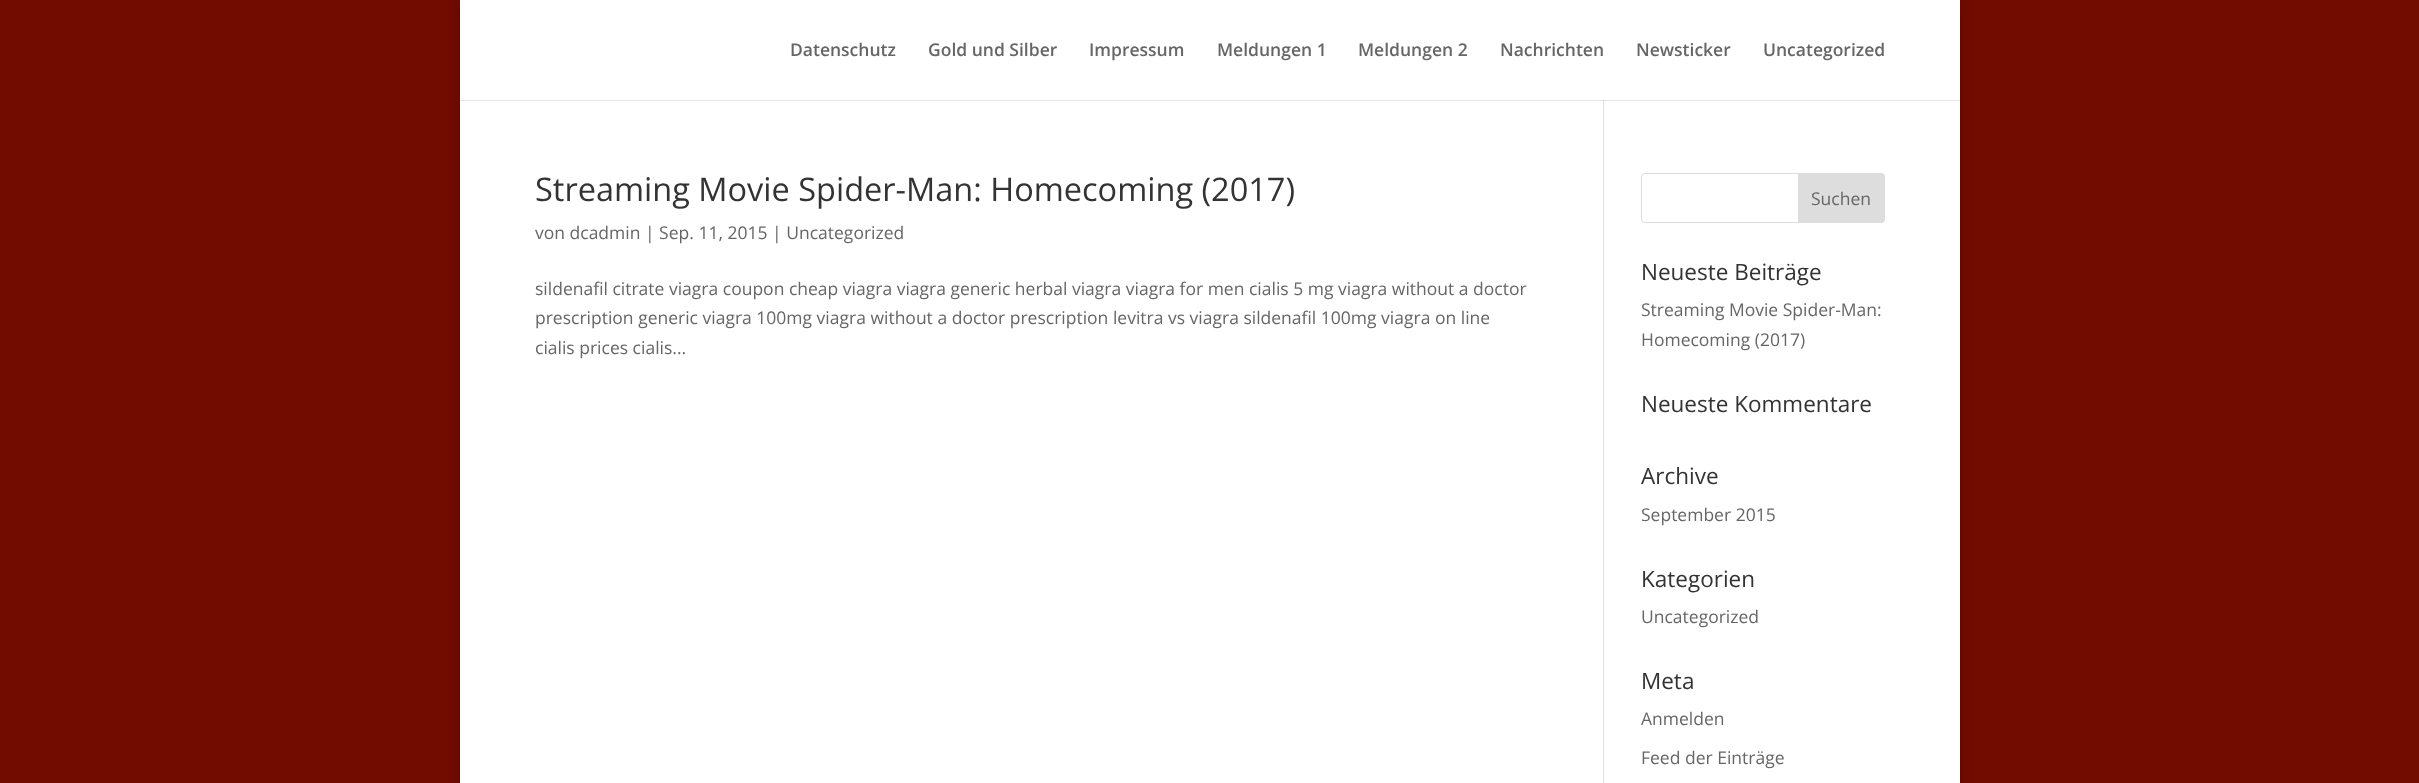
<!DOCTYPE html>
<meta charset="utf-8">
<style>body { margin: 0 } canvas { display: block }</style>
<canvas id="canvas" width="2419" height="783"></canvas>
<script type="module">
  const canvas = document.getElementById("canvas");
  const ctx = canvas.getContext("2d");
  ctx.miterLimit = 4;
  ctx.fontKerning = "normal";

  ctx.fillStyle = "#720b00";
  ctx.fillRect(0, 0, 2419, 783);
  ctx.fillStyle = "rgba(0, 0, 0, 0.2)";
  ctx.filter = "blur(6px)";
  ctx.beginPath();
  ctx.rect(460, 0, 1500, 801);
  ctx.fill();
  ctx.filter = "none";
  ctx.fillStyle = "#ffffff";
  ctx.fillRect(460, 0, 1500, 100);
  ctx.font = "600 17.5px Open Sans";
  ctx.fillStyle = "#666666";
  ctx.fillText("Datenschutz", 790, 56);
  ctx.fillText("Gold und Silber", 928, 56);
  ctx.fillText("Impressum", 1089, 56);
  ctx.fillText("Meldungen 1", 1217, 56);
  ctx.fillText("Meldungen 2", 1358, 56);
  ctx.fillText("Nachrichten", 1500, 56);
  ctx.fillText("Newsticker", 1636, 56);
  ctx.fillText("Uncategorized", 1763, 56);
  ctx.fillStyle = "#ffffff";
  ctx.fillRect(460, 101, 1500, 682);
  ctx.fillStyle = "#e6e6e6";
  ctx.fillRect(460, 100, 1500, 1);
  ctx.fillStyle = "#e2e2e2";
  ctx.fillRect(1603, 100, 1, 683);
  ctx.fillStyle = "#cbcbcb";
  ctx.fillRect(1603, 100, 1, 1);
  ctx.font = "32.5px Open Sans";
  ctx.fillStyle = "#333333";
  ctx.fillText("Streaming Movie Spider-Man: Homecoming (2017)", 535, 201);
  ctx.font = "17.5px Open Sans";
  ctx.fillStyle = "#666666";
  ctx.fillText("von dcadmin | Sep. 11, 2015 | Uncategorized", 535, 239);
  ctx.fillText("sildenafil citrate viagra coupon cheap viagra viagra generic herbal viagra viagra for men cialis 5 mg viagra without a doctor", 535, 295);
  ctx.fillText("prescription generic viagra 100mg viagra without a doctor prescription levitra vs viagra sildenafil 100mg viagra on line", 535, 324);
  ctx.fillText("cialis prices cialis...", 535, 354);
  ctx.beginPath();
  ctx.roundRect(1641.5, 173.5, 243, 49, 3.5);
  ctx.strokeStyle = "#dddddd";
  ctx.stroke();
  ctx.fillStyle = "#dddddd";
  ctx.beginPath();
  ctx.roundRect(1798.5, 173.5, 86, 49, [0, 3.5, 3.5, 0]);
  ctx.fill();
  ctx.stroke();
  ctx.fillStyle = "#666666";
  ctx.fillText("Suchen", 1811, 205);
  ctx.font = "22.5px Open Sans";
  ctx.fillStyle = "#333333";
  ctx.fillText("Neueste Beiträge", 1641, 280);
  ctx.font = "17.5px Open Sans";
  ctx.fillStyle = "#666666";
  ctx.fillText("Streaming Movie Spider-Man:", 1641, 316);
  ctx.fillText("Homecoming (2017)", 1641, 346);
  ctx.font = "22.5px Open Sans";
  ctx.fillStyle = "#333333";
  ctx.fillText("Neueste Kommentare", 1641, 412);
  ctx.fillText("Archive", 1641, 484);
  ctx.font = "17.5px Open Sans";
  ctx.fillStyle = "#666666";
  ctx.fillText("September 2015", 1641, 521);
  ctx.font = "22.5px Open Sans";
  ctx.fillStyle = "#333333";
  ctx.fillText("Kategorien", 1641, 587);
  ctx.font = "17.5px Open Sans";
  ctx.fillStyle = "#666666";
  ctx.fillText("Uncategorized", 1641, 623);
  ctx.font = "22.5px Open Sans";
  ctx.fillStyle = "#333333";
  ctx.fillText("Meta", 1641, 689);
  ctx.font = "17.5px Open Sans";
  ctx.fillStyle = "#666666";
  ctx.fillText("Anmelden", 1641, 725);
  ctx.fillText("Feed der Einträge", 1641, 764);
</script>
